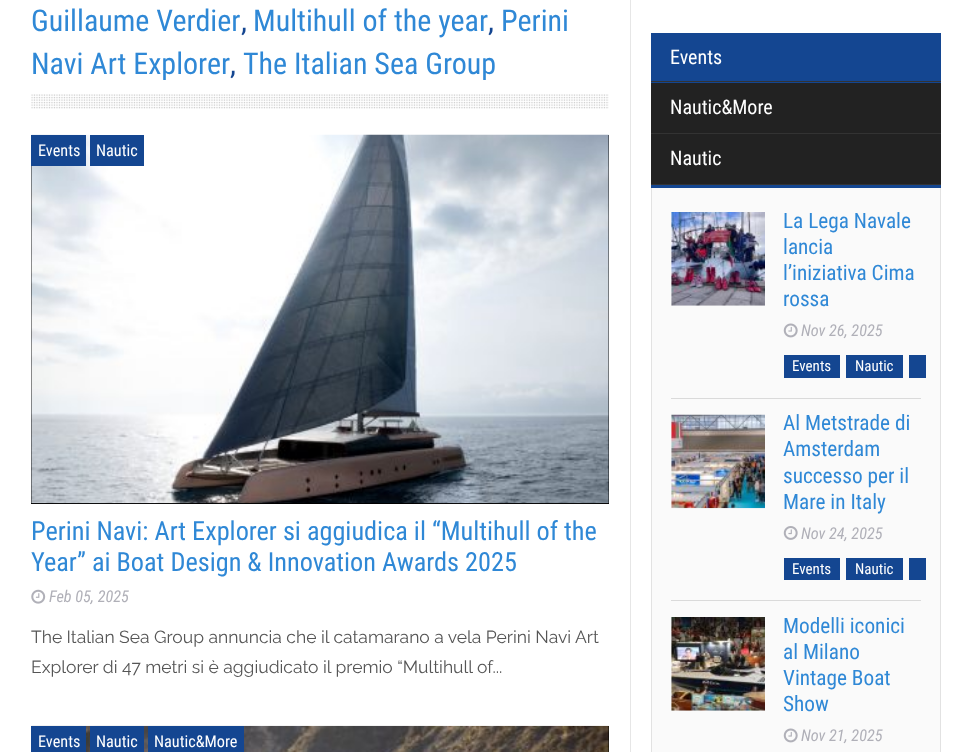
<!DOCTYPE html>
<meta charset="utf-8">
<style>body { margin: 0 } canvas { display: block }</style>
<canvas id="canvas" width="972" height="752"></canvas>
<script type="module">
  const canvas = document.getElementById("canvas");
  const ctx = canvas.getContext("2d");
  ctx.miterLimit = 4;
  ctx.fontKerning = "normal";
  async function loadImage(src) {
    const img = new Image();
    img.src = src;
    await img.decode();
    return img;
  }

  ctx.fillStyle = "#ffffff";
  ctx.fillRect(0, 0, 972, 752);
  ctx.fillStyle = "#e6e6e6";
  ctx.fillRect(630, 0, 1, 752);
  ctx.drawImage(await loadImage("img1.png"), 31, 94, 578, 15);
  ctx.font = "30px Roboto Condensed";
  ctx.fillStyle = "#2f88d6";
  ctx.fillText("Guillaume Verdier", 31, 31);
  ctx.fillStyle = "#144691";
  ctx.fillText(",", 241, 31);
  ctx.fillStyle = "#2f88d6";
  ctx.fillText("Multihull of the year", 253, 31);
  ctx.fillStyle = "#144691";
  ctx.fillText(",", 488, 31);
  ctx.fillStyle = "#2f88d6";
  ctx.fillText("Perini", 501, 31);
  ctx.fillText("Navi Art Explorer", 31, 74);
  ctx.fillStyle = "#144691";
  ctx.fillText(",", 230, 74);
  ctx.fillStyle = "#2f88d6";
  ctx.fillText("The Italian Sea Group", 243, 74);
  ctx.fillStyle = "#000000";
  ctx.fillRect(31, 135, 578, 369);
  ctx.drawImage(await loadImage("img2.png"), 31, 134, 578, 370);
  ctx.fillStyle = "#144691";
  ctx.fillRect(31, 135, 55, 31);
  ctx.font = "16.25px Roboto Condensed";
  ctx.fillStyle = "#ffffff";
  ctx.fillText("Events", 38, 156);
  ctx.fillStyle = "#144691";
  ctx.fillRect(90, 135, 54, 31);
  ctx.fillStyle = "#ffffff";
  ctx.fillText("Nautic", 96, 156);
  ctx.font = "26.25px Roboto Condensed";
  ctx.fillStyle = "#2f88d6";
  ctx.fillText("Perini Navi: Art Explorer si aggiudica il “Multihull of the", 31, 540);
  ctx.fillText("Year” ai Boat Design & Innovation Awards 2025", 31, 571);
  ctx.drawImage(await loadImage("img3.png"), 31, 589, 15, 15);
  ctx.font = "italic 16.25px Roboto Condensed";
  ctx.fillStyle = "#b0b0b8";
  ctx.fillText("Feb 05, 2025", 49, 602);
  ctx.font = "17.5px Raleway";
  ctx.fillStyle = "#555555";
  ctx.fillText("The Italian Sea Group annuncia che il catamarano a vela Perini Navi Art", 31, 643);
  ctx.fillText("Explorer di 47 metri si è aggiudicato il premio “Multihull of...", 31, 673);
  ctx.fillStyle = "#000000";
  ctx.fillRect(608, 726, 1, 26);
  ctx.drawImage(await loadImage("img4.png"), 31, 725, 578, 27);
  ctx.fillStyle = "#144691";
  ctx.fillRect(31, 726, 55, 26);
  ctx.font = "16.25px Roboto Condensed";
  ctx.fillStyle = "#ffffff";
  ctx.fillText("Events", 38, 747);
  ctx.fillStyle = "#144691";
  ctx.fillRect(90, 726, 54, 26);
  ctx.fillStyle = "#ffffff";
  ctx.fillText("Nautic", 96, 747);
  ctx.fillStyle = "#144691";
  ctx.fillRect(148, 726, 96, 26);
  ctx.fillStyle = "#ffffff";
  ctx.fillText("Nautic&More", 154, 747);
  ctx.fillStyle = "#222222";
  ctx.fillRect(651, 83, 290, 101);
  ctx.fillStyle = "#144691";
  ctx.fillRect(651, 185, 290, 3);
  ctx.fillRect(651, 33, 290, 50);
  ctx.fillStyle = "#333333";
  ctx.fillRect(651, 81, 290, 1);
  ctx.font = "20px Roboto Condensed";
  ctx.fillStyle = "#ffffff";
  ctx.fillText("Events", 670, 64);
  ctx.fillStyle = "#333333";
  ctx.fillRect(651, 133, 290, 1);
  ctx.fillStyle = "#ffffff";
  ctx.fillText("Nautic&More", 670, 114);
  ctx.fillStyle = "#333333";
  ctx.fillRect(651, 184, 290, 1);
  ctx.fillStyle = "#ffffff";
  ctx.fillText("Nautic", 670, 165);
  ctx.fillStyle = "#fafafa";
  ctx.fillRect(652, 188, 288, 564);
  ctx.fillStyle = "#e2e2e2";
  ctx.fillRect(940, 188, 1, 564);
  ctx.fillRect(651, 188, 1, 564);
  ctx.fillStyle = "#dadada";
  ctx.fillRect(671, 398, 250, 1);
  ctx.drawImage(await loadImage("img5.png"), 671, 212, 94, 94);
  ctx.font = "21.25px Roboto Condensed";
  ctx.fillStyle = "#2f88d6";
  ctx.fillText("La Lega Navale", 783, 228);
  ctx.fillText("lancia", 783, 254);
  ctx.fillText("l’iniziativa Cima", 783, 280);
  ctx.fillText("rossa", 783, 306);
  ctx.drawImage(await loadImage("img6.png"), 783, 323, 15, 15);
  ctx.font = "italic 16.25px Roboto Condensed";
  ctx.fillStyle = "#b0b0b8";
  ctx.fillText("Nov 26, 2025", 801, 336);
  ctx.fillStyle = "#144691";
  ctx.fillRect(784, 355, 56, 23);
  ctx.font = "15px Roboto Condensed";
  ctx.fillStyle = "#ffffff";
  ctx.fillText("Events", 792, 371);
  ctx.fillStyle = "#144691";
  ctx.fillRect(846, 355, 57, 23);
  ctx.fillStyle = "#ffffff";
  ctx.fillText("Nautic", 855, 371);
  ctx.fillStyle = "#144691";
  ctx.fillRect(909, 355, 17, 23);
  ctx.fillStyle = "#dadada";
  ctx.fillRect(671, 600, 250, 1);
  ctx.drawImage(await loadImage("img7.png"), 671, 414, 94, 95);
  ctx.font = "21.25px Roboto Condensed";
  ctx.fillStyle = "#2f88d6";
  ctx.fillText("Al Metstrade di", 783, 430);
  ctx.fillText("Amsterdam", 783, 456);
  ctx.fillText("successo per il", 783, 483);
  ctx.fillText("Mare in Italy", 783, 509);
  ctx.drawImage(await loadImage("img8.png"), 783, 526, 15, 14);
  ctx.font = "italic 16.25px Roboto Condensed";
  ctx.fillStyle = "#b0b0b8";
  ctx.fillText("Nov 24, 2025", 801, 539);
  ctx.fillStyle = "#144691";
  ctx.fillRect(784, 558, 56, 22);
  ctx.font = "15px Roboto Condensed";
  ctx.fillStyle = "#ffffff";
  ctx.fillText("Events", 792, 574);
  ctx.fillStyle = "#144691";
  ctx.fillRect(846, 558, 57, 22);
  ctx.fillStyle = "#ffffff";
  ctx.fillText("Nautic", 855, 574);
  ctx.fillStyle = "#144691";
  ctx.fillRect(909, 558, 17, 22);
  ctx.drawImage(await loadImage("img9.png"), 671, 617, 94, 94);
  ctx.font = "21.25px Roboto Condensed";
  ctx.fillStyle = "#2f88d6";
  ctx.fillText("Modelli iconici", 783, 633);
  ctx.fillText("al Milano", 783, 659);
  ctx.fillText("Vintage Boat", 783, 685);
  ctx.fillText("Show", 783, 711);
  ctx.drawImage(await loadImage("img6.png"), 783, 728, 15, 15);
  ctx.font = "italic 16.25px Roboto Condensed";
  ctx.fillStyle = "#b0b0b8";
  ctx.fillText("Nov 21, 2025", 801, 741);
</script>
